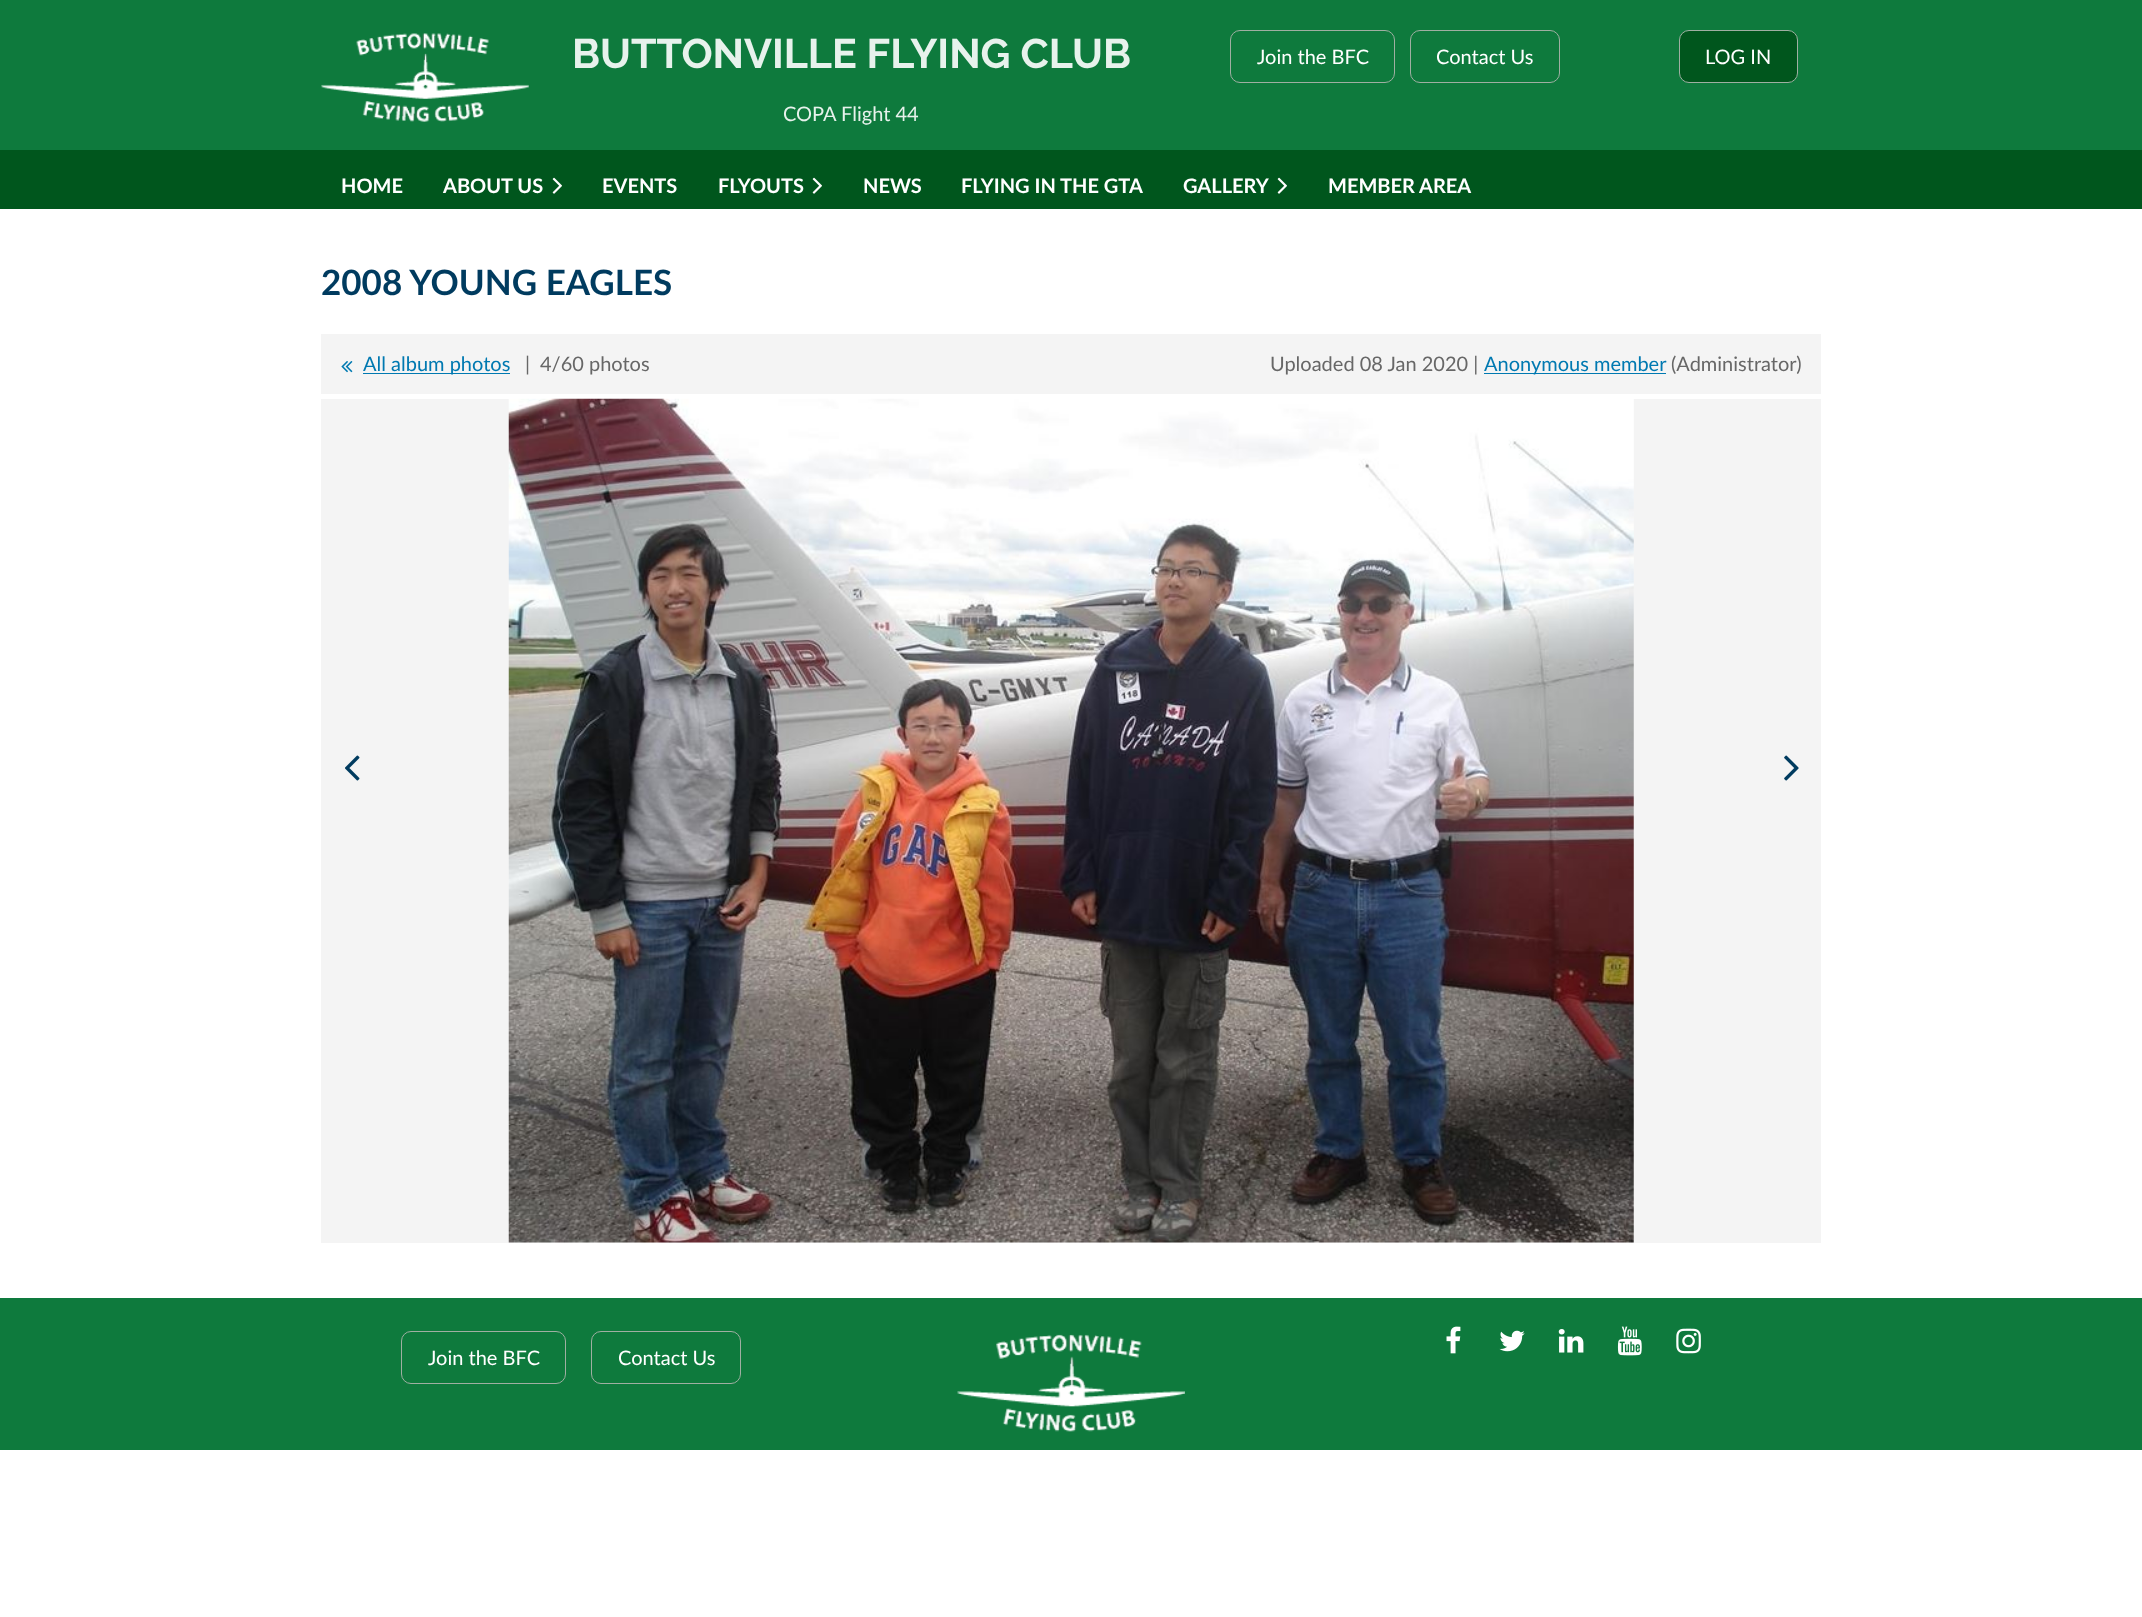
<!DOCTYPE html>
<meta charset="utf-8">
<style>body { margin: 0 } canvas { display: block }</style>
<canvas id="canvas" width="2142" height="1617"></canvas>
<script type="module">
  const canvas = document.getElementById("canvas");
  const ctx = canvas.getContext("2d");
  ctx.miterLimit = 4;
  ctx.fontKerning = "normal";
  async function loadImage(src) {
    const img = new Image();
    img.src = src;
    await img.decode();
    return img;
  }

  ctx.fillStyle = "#ffffff";
  ctx.fillRect(0, 0, 2142, 1617);
  ctx.fillStyle = "#0e7a3d";
  ctx.fillRect(0, 0, 2142, 150);
  ctx.drawImage(await loadImage("img1.png"), 321, 33, 208, 89);
  ctx.font = "bold 41.25px Raleway";
  ctx.fillStyle = "#e7f2ec";
  ctx.fillText("BUTTONVILLE FLYING CLUB", 572, 68);
  ctx.font = "20px Lato";
  ctx.fillText("COPA Flight 44", 783, 121);
  ctx.beginPath();
  ctx.roundRect(1230.5, 30.5, 164, 52, 9.5);
  ctx.strokeStyle = "#9fafa2";
  ctx.stroke();
  ctx.fillStyle = "#ffffff";
  ctx.fillText("Join the BFC", 1257, 64);
  ctx.beginPath();
  ctx.roundRect(1410.5, 30.5, 149, 52, 9.5);
  ctx.stroke();
  ctx.fillText("Contact Us", 1436, 64);
  ctx.fillStyle = "#00561d";
  ctx.beginPath();
  ctx.roundRect(1679.5, 30.5, 118, 52, 9.5);
  ctx.fill();
  ctx.stroke();
  ctx.fillStyle = "#ffffff";
  ctx.fillText("LOG IN", 1705, 64);
  ctx.fillStyle = "#00561d";
  ctx.fillRect(0, 150, 2142, 59);
  ctx.font = "bold 20px Lato";
  ctx.fillStyle = "#ffffff";
  ctx.fillText("HOME", 341, 193);
  ctx.fillText("ABOUT US", 443, 193);
  ctx.drawImage(await loadImage("img2.png"), 552, 177, 10, 17);
  ctx.fillText("EVENTS", 602, 193);
  ctx.fillText("FLYOUTS", 718, 193);
  ctx.drawImage(await loadImage("img2.png"), 812, 177, 10, 17);
  ctx.fillText("NEWS", 863, 193);
  ctx.fillText("FLYING IN THE GTA", 961, 193);
  ctx.fillText("GALLERY", 1183, 193);
  ctx.drawImage(await loadImage("img2.png"), 1277, 177, 10, 17);
  ctx.fillText("MEMBER AREA", 1328, 193);
  ctx.font = "bold 35px Lato";
  ctx.fillStyle = "#003b5f";
  ctx.fillText("2008 YOUNG EAGLES", 321, 295);
  ctx.fillStyle = "#f4f4f4";
  ctx.fillRect(321, 334, 1500, 60);
  ctx.drawImage(await loadImage("img3.png"), 341, 361, 12, 12);
  ctx.fillStyle = "#0079b1";
  ctx.fillRect(363, 373, 147, 1);
  ctx.font = "20px Lato";
  ctx.fillText("All album photos", 363, 371);
  ctx.fillStyle = "#676767";
  ctx.fillText("|", 525, 371);
  ctx.fillText("4/60 photos", 540, 371);
  ctx.fillText("Uploaded 08 Jan 2020 |", 1270, 371);
  ctx.fillStyle = "#0079b1";
  ctx.fillRect(1484, 373, 182, 1);
  ctx.fillText("Anonymous member", 1484, 371);
  ctx.fillStyle = "#676767";
  ctx.fillText("(Administrator)", 1671, 371);
  ctx.fillStyle = "#f4f4f4";
  ctx.fillRect(321, 399, 1500, 844);
  ctx.drawImage(await loadImage("img4.png"), 345, 755, 15, 26);
  ctx.drawImage(await loadImage("img5.png"), 508, 398, 1126, 845);
  ctx.drawImage(await loadImage("img6.png"), 1784, 755, 15, 26);
  ctx.fillStyle = "#0e7a3d";
  ctx.fillRect(0, 1298, 2142, 152);
  ctx.beginPath();
  ctx.roundRect(401.5, 1331.5, 164, 52, 9.5);
  ctx.stroke();
  ctx.fillStyle = "#ffffff";
  ctx.fillText("Join the BFC", 428, 1365);
  ctx.beginPath();
  ctx.roundRect(591.5, 1331.5, 149, 52, 9.5);
  ctx.stroke();
  ctx.fillText("Contact Us", 618, 1365);
  ctx.drawImage(await loadImage("img7.png"), 957, 1334, 228, 98);
  ctx.drawImage(await loadImage("img8.png"), 1446, 1326, 15, 28);
  ctx.drawImage(await loadImage("img9.png"), 1499, 1330, 26, 22);
  ctx.drawImage(await loadImage("img10.png"), 1558, 1329, 26, 24);
  ctx.drawImage(await loadImage("img11.png"), 1617, 1326, 25, 30);
  ctx.drawImage(await loadImage("img12.png"), 1676, 1328, 25, 26);
</script>
